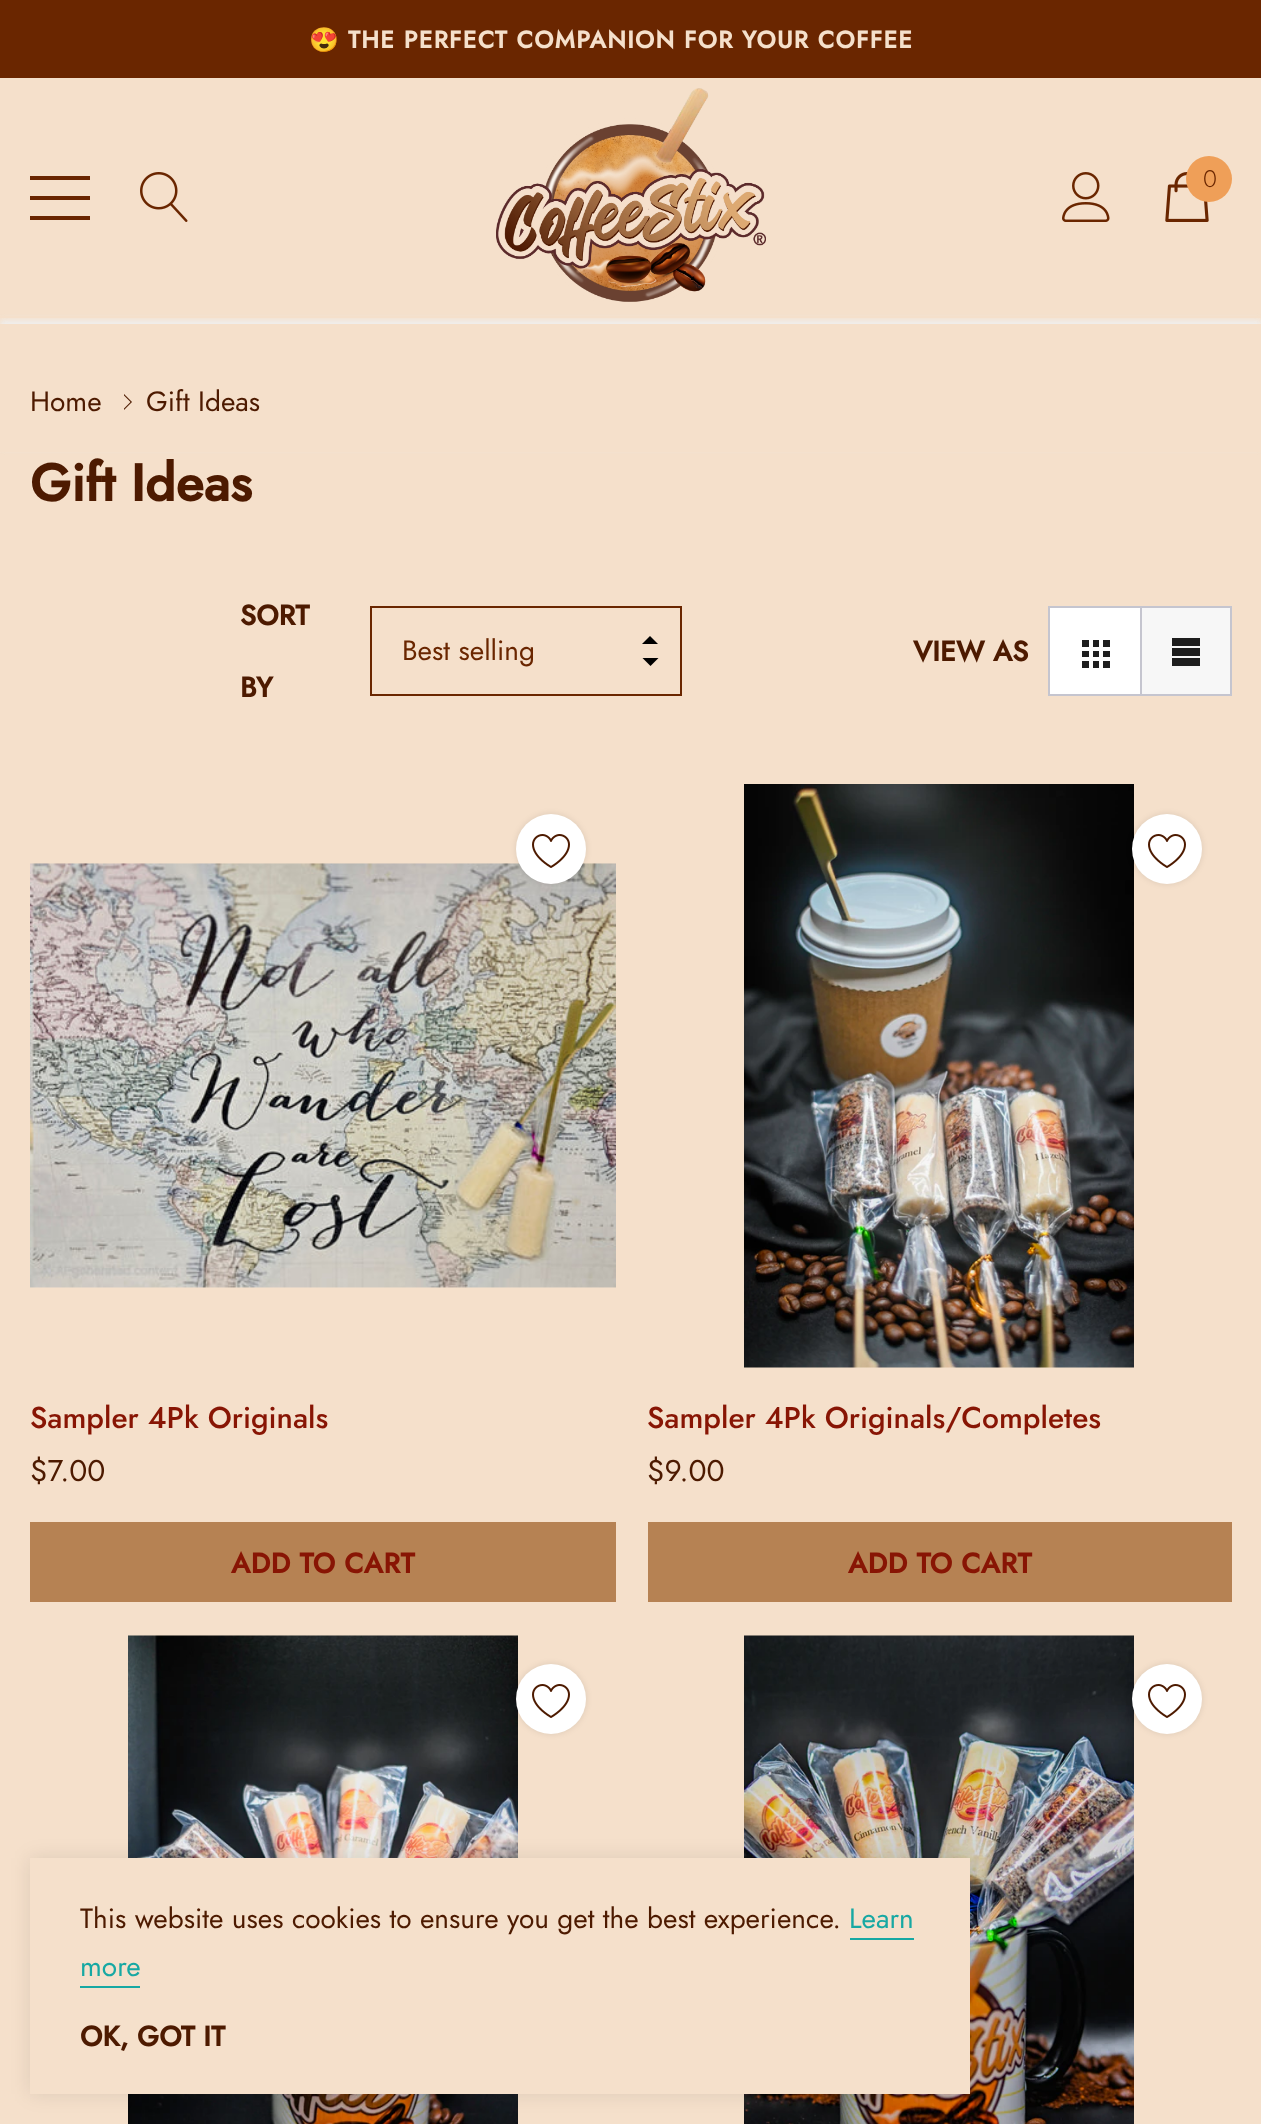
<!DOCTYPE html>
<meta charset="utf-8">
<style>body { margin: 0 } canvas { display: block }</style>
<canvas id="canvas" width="1261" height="2124"></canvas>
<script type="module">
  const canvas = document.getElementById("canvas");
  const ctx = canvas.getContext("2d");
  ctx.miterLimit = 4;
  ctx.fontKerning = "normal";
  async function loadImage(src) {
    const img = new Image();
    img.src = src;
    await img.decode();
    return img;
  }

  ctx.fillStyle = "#f5e0cb";
  ctx.fillRect(0, 0, 1261, 2124);
  ctx.fillStyle = "#6a2600";
  ctx.fillRect(0, 0, 1261, 78);
  ctx.letterSpacing = "1.2px";
  ctx.font = "bold 24px Noto Color Emoji";
  ctx.fillStyle = "#f5e0cb";
  ctx.fillText("😍", 309, 48);
  ctx.font = "bold 24px Jost";
  ctx.fillText("THE PERFECT COMPANION FOR YOUR COFFEE", 348, 48);
  ctx.save();
  ctx.beginPath();
  ctx.moveTo(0, 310);
  ctx.lineTo(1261, 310);
  ctx.lineTo(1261, 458);
  ctx.lineTo(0, 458);
  ctx.closePath();
  ctx.moveTo(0, 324);
  ctx.lineTo(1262, 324);
  ctx.lineTo(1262, 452);
  ctx.lineTo(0, 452);
  ctx.closePath();
  ctx.clip("evenodd");
  ctx.fillStyle = "#efefef";
  ctx.filter = "blur(3px)";
  ctx.beginPath();
  ctx.rect(0, 320, 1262, 128);
  ctx.fill();
  ctx.filter = "none";
  ctx.restore();
  ctx.fillRect(0, 316, 1261, 2);
  ctx.fillStyle = "#6a2600";
  ctx.fillRect(30, 196, 60, 4);
  ctx.fillRect(30, 176, 60, 4);
  ctx.fillRect(30, 216, 60, 4);
  ctx.drawImage(await loadImage("img1.png"), 140, 172, 48, 50);
  ctx.drawImage(await loadImage("img2.png"), 496, 88, 270, 214);
  ctx.drawImage(await loadImage("img3.png"), 1062, 172, 48, 50);
  ctx.drawImage(await loadImage("img4.png"), 1165, 172, 44, 50);
  ctx.fillStyle = "#ef9f58";
  ctx.beginPath();
  ctx.arc(1209, 179, 23, 0, Math.PI * 2);
  ctx.fill();
  ctx.letterSpacing = "0px";
  ctx.font = "300 24px Jost";
  ctx.fillStyle = "#6a2600";
  ctx.fillText("0", 1203, 187);
  ctx.font = "28px Jost";
  ctx.fillStyle = "#4d1a00";
  ctx.fillText("Home", 30, 411);
  ctx.drawImage(await loadImage("img5.png"), 124, 394, 8, 16);
  ctx.fillText("Gift Ideas", 146, 411);
  ctx.font = "bold 52px Jost";
  ctx.fillText("Gift Ideas", 30, 501);
  ctx.font = "bold 28px Jost";
  ctx.fillText("SORT", 240, 625);
  ctx.fillText("BY", 240, 697);
  ctx.strokeStyle = "#6a2600";
  ctx.lineWidth = 2;
  ctx.strokeRect(371, 607, 310, 88);
  ctx.font = "28px Jost";
  ctx.fillStyle = "#6a2600";
  ctx.fillText("Best selling", 402, 660);
  ctx.fillStyle = "#000000";
  ctx.beginPath();
  ctx.moveTo(658, 644);
  ctx.lineTo(642, 644);
  ctx.lineTo(650, 636);
  ctx.closePath();
  ctx.moveTo(642.5, 658);
  ctx.lineTo(658.5, 658);
  ctx.lineTo(650.5, 666);
  ctx.closePath();
  ctx.fill();
  ctx.font = "bold 28px Jost";
  ctx.fillStyle = "#4d1a00";
  ctx.fillText("VIEW AS", 913, 661);
  ctx.fillStyle = "#f7f7f7";
  ctx.fillRect(1142, 608, 88, 86);
  ctx.strokeStyle = "#c5c5cf";
  ctx.strokeRect(1049, 607, 182, 88);
  ctx.fillStyle = "#ffffff";
  ctx.fillRect(1050, 608, 90, 86);
  ctx.drawImage(await loadImage("img6.png"), 1082, 640, 28, 28);
  ctx.fillStyle = "#c5c5cf";
  ctx.fillRect(1140, 608, 2, 86);
  ctx.fillStyle = "#1e1e1e";
  ctx.fillRect(1172, 658, 28, 8);
  ctx.fillRect(1172, 648, 28, 8);
  ctx.fillRect(1172, 638, 28, 8);
  ctx.drawImage(await loadImage("img8.png"), 30, 863, 586, 425);
  ctx.fillStyle = "rgba(0, 0, 0, 0.1)";
  ctx.filter = "blur(3px)";
  ctx.beginPath();
  ctx.roundRect(516, 814, 70, 70, 35);
  ctx.fill();
  ctx.filter = "none";
  ctx.fillStyle = "#ffffff";
  ctx.beginPath();
  ctx.arc(551, 849, 35, 0, Math.PI * 2);
  ctx.fill();
  ctx.drawImage(await loadImage("img7.png"), 532, 834, 38, 34);
  ctx.font = "500 30px Jost";
  ctx.fillStyle = "#881504";
  ctx.fillText("Sampler 4Pk Originals", 30, 1428);
  ctx.font = "30px Jost";
  ctx.fillStyle = "#4d1a00";
  ctx.fillText("$7.00", 30, 1481);
  ctx.fillStyle = "#b68253";
  ctx.fillRect(30, 1522, 586, 80);
  ctx.letterSpacing = "0.4px";
  ctx.font = "bold 28px Jost";
  ctx.fillStyle = "#881504";
  ctx.fillText("ADD TO CART", 231, 1573);
  ctx.drawImage(await loadImage("img9.png"), 744, 784, 390, 584);
  ctx.fillStyle = "rgba(0, 0, 0, 0.1)";
  ctx.filter = "blur(3px)";
  ctx.beginPath();
  ctx.roundRect(1132, 814, 70, 70, 35);
  ctx.fill();
  ctx.filter = "none";
  ctx.fillStyle = "#ffffff";
  ctx.beginPath();
  ctx.arc(1167, 849, 35, 0, Math.PI * 2);
  ctx.fill();
  ctx.drawImage(await loadImage("img7.png"), 1148, 834, 38, 34);
  ctx.letterSpacing = "0px";
  ctx.font = "500 30px Jost";
  ctx.fillStyle = "#881504";
  ctx.fillText("Sampler 4Pk Originals/Completes", 647, 1428);
  ctx.font = "30px Jost";
  ctx.fillStyle = "#4d1a00";
  ctx.fillText("$9.00", 647, 1481);
  ctx.fillStyle = "#b68253";
  ctx.fillRect(648, 1522, 584, 80);
  ctx.letterSpacing = "0.4px";
  ctx.font = "bold 28px Jost";
  ctx.fillStyle = "#881504";
  ctx.fillText("ADD TO CART", 848, 1573);
  ctx.drawImage(await loadImage("img10.png"), 128, 1635, 390, 489);
  ctx.fillStyle = "rgba(0, 0, 0, 0.1)";
  ctx.filter = "blur(3px)";
  ctx.beginPath();
  ctx.roundRect(516, 1664, 70, 70, 35);
  ctx.fill();
  ctx.filter = "none";
  ctx.fillStyle = "#ffffff";
  ctx.beginPath();
  ctx.arc(551, 1699, 35, 0, Math.PI * 2);
  ctx.fill();
  ctx.drawImage(await loadImage("img7.png"), 532, 1684, 38, 34);
  ctx.drawImage(await loadImage("img11.png"), 744, 1635, 390, 489);
  ctx.fillStyle = "rgba(0, 0, 0, 0.1)";
  ctx.filter = "blur(3px)";
  ctx.beginPath();
  ctx.roundRect(1132, 1664, 70, 70, 35);
  ctx.fill();
  ctx.filter = "none";
  ctx.fillStyle = "#ffffff";
  ctx.beginPath();
  ctx.arc(1167, 1699, 35, 0, Math.PI * 2);
  ctx.fill();
  ctx.drawImage(await loadImage("img7.png"), 1148, 1684, 38, 34);
  ctx.fillStyle = "rgba(0, 0, 0, 0.1)";
  ctx.filter = "blur(10px)";
  ctx.beginPath();
  ctx.rect(30, 1858, 940, 236);
  ctx.fill();
  ctx.filter = "none";
  ctx.fillStyle = "#f5e0cb";
  ctx.fillRect(30, 1858, 940, 236);
  ctx.letterSpacing = "0px";
  ctx.font = "28px Jost";
  ctx.fillStyle = "#4d1a00";
  ctx.fillText("This website uses cookies to ensure you get the best experience.", 80, 1928);
  ctx.fillStyle = "#17a8a3";
  ctx.fillText("Learn", 849, 1928);
  ctx.fillRect(850, 1938, 64, 2);
  ctx.fillText("more", 80, 1976);
  ctx.fillRect(80, 1986, 60, 2);
  ctx.font = "bold 28px Jost";
  ctx.fillStyle = "#4d1a00";
  ctx.fillText("OK, GOT IT", 80, 2046);
</script>
